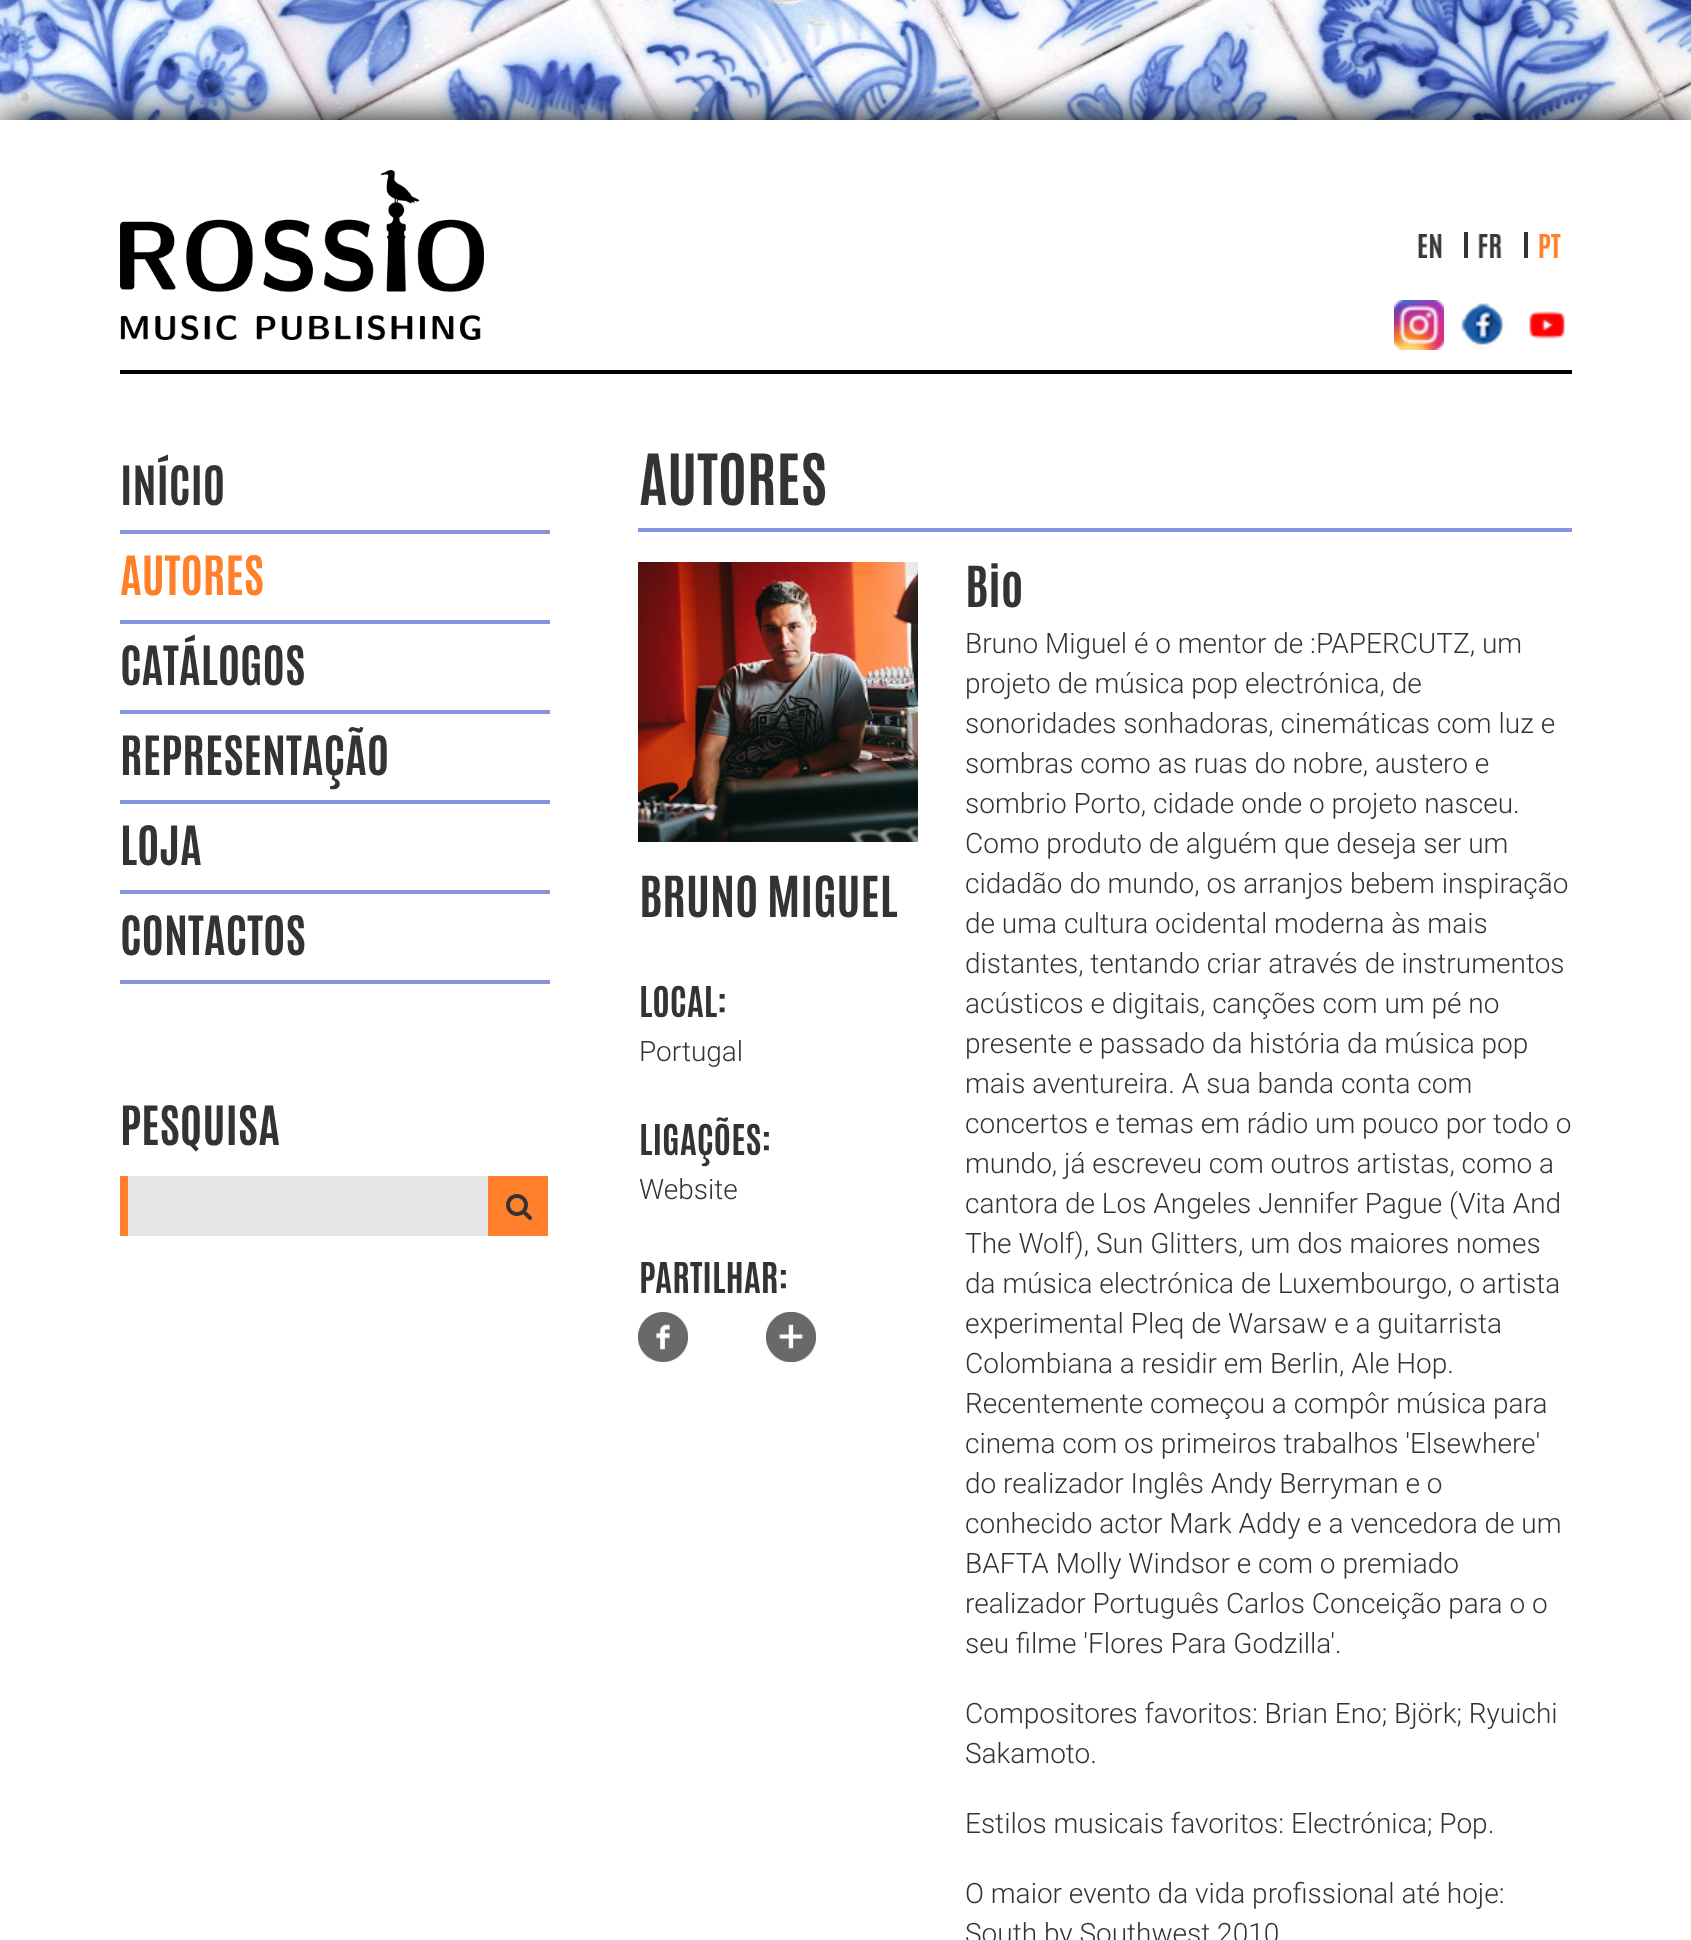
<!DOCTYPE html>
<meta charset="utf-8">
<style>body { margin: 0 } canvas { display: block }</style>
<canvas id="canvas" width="1691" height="1940"></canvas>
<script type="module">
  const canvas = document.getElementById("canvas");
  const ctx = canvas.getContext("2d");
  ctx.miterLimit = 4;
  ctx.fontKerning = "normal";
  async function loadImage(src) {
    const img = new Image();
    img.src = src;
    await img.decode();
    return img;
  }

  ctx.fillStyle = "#ffffff";
  ctx.fillRect(0, 0, 1691, 1940);
  ctx.drawImage(await loadImage("img1.png"), 0, 0, 1691, 120);
  ctx.fillStyle = "#000000";
  ctx.filter = "blur(20px)";
  ctx.beginPath();
  ctx.rect(0, 120, 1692, 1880);
  ctx.fill();
  ctx.filter = "none";
  ctx.fillStyle = "#ffffff";
  ctx.fillRect(0, 120, 1691, 1820);
  ctx.drawImage(await loadImage("img2.png"), 120, 170, 364, 170);
  ctx.fillStyle = "#000000";
  ctx.fillRect(120, 370, 1452, 4);
  ctx.drawImage(await loadImage("img3.png"), 1418, 234, 24, 24);
  ctx.fillStyle = "#333333";
  ctx.fillRect(1464, 232, 4, 26);
  ctx.drawImage(await loadImage("img4.png"), 1478, 234, 24, 24);
  ctx.fillRect(1524, 232, 4, 26);
  ctx.drawImage(await loadImage("img5.png"), 1539, 234, 23, 24);
  ctx.drawImage(await loadImage("img6.png"), 1394, 300, 50, 50);
  ctx.drawImage(await loadImage("img7.png"), 1461, 303, 47, 47);
  ctx.drawImage(await loadImage("img8.png"), 1529, 311, 36, 28);
  ctx.fillStyle = "#8594dd";
  ctx.fillRect(120, 530, 430, 4);
  ctx.font = "bold 46px Antonio";
  ctx.fillStyle = "#333333";
  ctx.fillText("INÍCIO", 120, 505);
  ctx.fillStyle = "#8594dd";
  ctx.fillRect(120, 620, 430, 4);
  ctx.fillStyle = "#ff7f2a";
  ctx.fillText("AUTORES", 120, 595);
  ctx.fillStyle = "#8594dd";
  ctx.fillRect(120, 710, 430, 4);
  ctx.fillStyle = "#333333";
  ctx.fillText("CATÁLOGOS", 120, 685);
  ctx.fillStyle = "#8594dd";
  ctx.fillRect(120, 800, 430, 4);
  ctx.fillStyle = "#333333";
  ctx.fillText("REPRESENTAÇÃO", 120, 775);
  ctx.fillStyle = "#8594dd";
  ctx.fillRect(120, 890, 430, 4);
  ctx.fillStyle = "#333333";
  ctx.fillText("LOJA", 120, 865);
  ctx.fillStyle = "#8594dd";
  ctx.fillRect(120, 980, 430, 4);
  ctx.fillStyle = "#333333";
  ctx.fillText("CONTACTOS", 120, 955);
  ctx.fillText("PESQUISA", 120, 1145);
  ctx.fillStyle = "#e6e6e6";
  ctx.fillRect(128, 1176, 360, 60);
  ctx.fillStyle = "#ff7f2a";
  ctx.fillRect(120, 1176, 8, 60);
  ctx.fillRect(488, 1176, 60, 60);
  ctx.drawImage(await loadImage("img9.png"), 506, 1194, 26, 26);
  ctx.fillStyle = "#8594dd";
  ctx.fillRect(638, 528, 934, 4);
  ctx.font = "bold 60px Antonio";
  ctx.fillStyle = "#333333";
  ctx.fillText("AUTORES", 639, 505);
  ctx.drawImage(await loadImage("img10.png"), 638, 562, 280, 280);
  ctx.font = "bold 48px Antonio";
  ctx.fillText("BRUNO MIGUEL", 639, 917);
  ctx.font = "bold 36px Antonio";
  ctx.fillText("LOCAL:", 639, 1017);
  ctx.font = "300 28px Roboto";
  ctx.fillText("Portugal", 639, 1061);
  ctx.font = "bold 36px Antonio";
  ctx.fillText("LIGAÇÕES:", 639, 1155);
  ctx.font = "300 28px Roboto";
  ctx.fillText("Website", 639, 1199);
  ctx.font = "bold 36px Antonio";
  ctx.fillText("PARTILHAR:", 639, 1293);
  ctx.drawImage(await loadImage("img11.png"), 638, 1312, 50, 50);
  ctx.drawImage(await loadImage("img12.png"), 766, 1312, 50, 50);
  ctx.font = "bold 48px Antonio";
  ctx.fillText("Bio", 965, 607);
  ctx.font = "300 28px Roboto";
  ctx.fillText("Bruno Miguel é o mentor de :PAPERCUTZ, um", 965, 653);
  ctx.fillText("projeto de música pop electrónica, de", 965, 693);
  ctx.fillText("sonoridades sonhadoras, cinemáticas com luz e", 965, 733);
  ctx.fillText("sombras como as ruas do nobre, austero e", 965, 773);
  ctx.fillText("sombrio Porto, cidade onde o projeto nasceu.", 965, 813);
  ctx.fillText("Como produto de alguém que deseja ser um", 965, 853);
  ctx.fillText("cidadão do mundo, os arranjos bebem inspiração", 965, 893);
  ctx.fillText("de uma cultura ocidental moderna às mais", 965, 933);
  ctx.fillText("distantes, tentando criar através de instrumentos", 965, 973);
  ctx.fillText("acústicos e digitais, canções com um pé no", 965, 1013);
  ctx.fillText("presente e passado da história da música pop", 965, 1053);
  ctx.fillText("mais aventureira. A sua banda conta com", 965, 1093);
  ctx.fillText("concertos e temas em rádio um pouco por todo o", 965, 1133);
  ctx.fillText("mundo, já escreveu com outros artistas, como a", 965, 1173);
  ctx.fillText("cantora de Los Angeles Jennifer Pague (Vita And", 965, 1213);
  ctx.fillText("The Wolf), Sun Glitters, um dos maiores nomes", 965, 1253);
  ctx.fillText("da música electrónica de Luxembourgo, o artista", 965, 1293);
  ctx.fillText("experimental Pleq de Warsaw e a guitarrista", 965, 1333);
  ctx.fillText("Colombiana a residir em Berlin, Ale Hop.", 965, 1373);
  ctx.fillText("Recentemente começou a compôr música para", 965, 1413);
  ctx.fillText("cinema com os primeiros trabalhos 'Elsewhere'", 965, 1453);
  ctx.fillText("do realizador Inglês Andy Berryman e o", 965, 1493);
  ctx.fillText("conhecido actor Mark Addy e a vencedora de um", 965, 1533);
  ctx.fillText("BAFTA Molly Windsor e com o premiado", 965, 1573);
  ctx.fillText("realizador Português Carlos Conceição para o o", 965, 1613);
  ctx.fillText("seu filme 'Flores Para Godzilla'.", 965, 1653);
  ctx.fillText("Compositores favoritos: Brian Eno; Björk; Ryuichi", 965, 1723);
  ctx.fillText("Sakamoto.", 965, 1763);
  ctx.fillText("Estilos musicais favoritos: Electrónica; Pop.", 965, 1833);
  ctx.fillText("O maior evento da vida profissional até hoje:", 965, 1903);
  ctx.fillText("South by Southwest 2010", 965, 1943);
</script>
